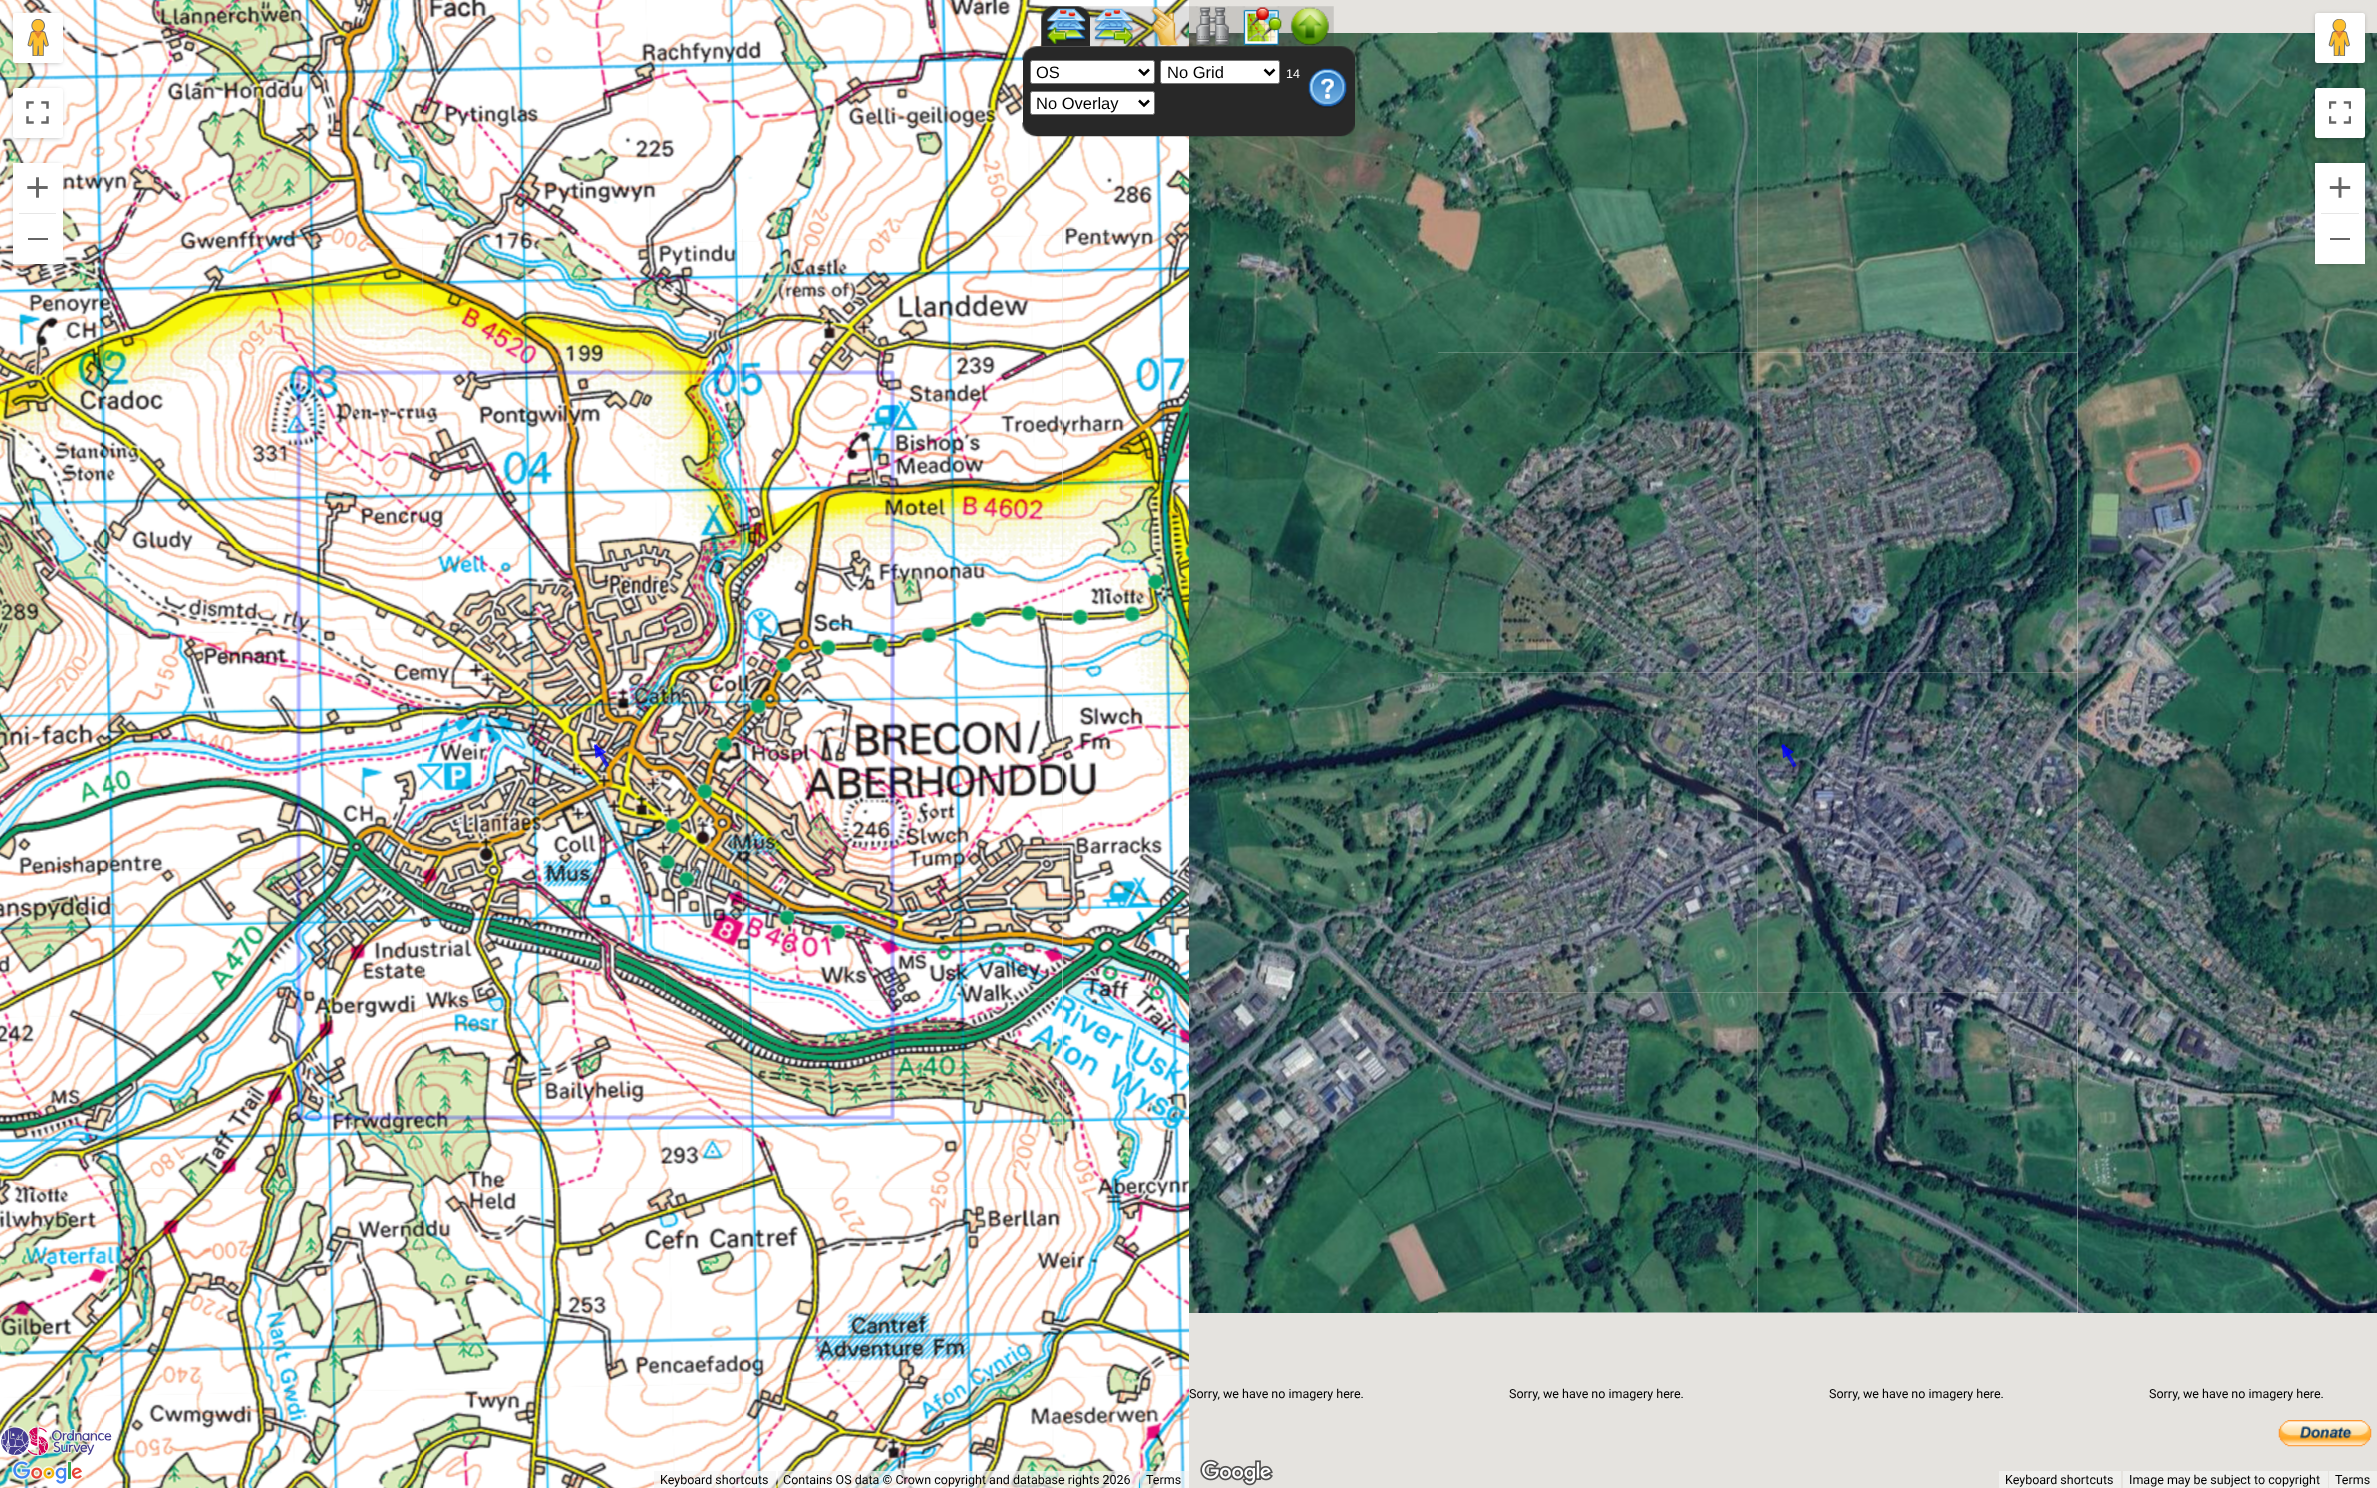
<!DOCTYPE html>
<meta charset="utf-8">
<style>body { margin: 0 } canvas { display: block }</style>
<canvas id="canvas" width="2377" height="1488"></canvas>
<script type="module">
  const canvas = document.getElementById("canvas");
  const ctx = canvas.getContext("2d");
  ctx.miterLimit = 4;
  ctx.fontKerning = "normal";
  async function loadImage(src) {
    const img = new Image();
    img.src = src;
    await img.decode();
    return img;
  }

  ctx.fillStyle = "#e5e3df";
  ctx.fillRect(0, 0, 2377, 1488);
  ctx.drawImage(await loadImage("img22.png"), 422, 548, 321, 321);
  ctx.drawImage(await loadImage("img21.png"), 102, 548, 321, 321);
  ctx.drawImage(await loadImage("img16.png"), 102, 228, 321, 321);
  ctx.drawImage(await loadImage("img17.png"), 422, 228, 321, 321);
  ctx.drawImage(await loadImage("img18.png"), 742, 228, 321, 321);
  ctx.drawImage(await loadImage("img13.png"), 743, 0, 320, 229);
  ctx.drawImage(await loadImage("img14.png"), 1063, 0, 126, 229);
  ctx.drawImage(await loadImage("img51.png"), 1189, 33, 249, 320);
  ctx.drawImage(await loadImage("img7.png"), 1022, 46, 333, 14);
  ctx.drawImage(await loadImage("img1.png"), 1041, 6, 49, 41);
  ctx.drawImage(await loadImage("img2.png"), 1090, 6, 49, 40);
  ctx.drawImage(await loadImage("img3.png"), 1138, 6, 50, 40);
  ctx.drawImage(await loadImage("img4.png"), 1187, 6, 50, 40);
  ctx.drawImage(await loadImage("img5.png"), 1236, 6, 49, 40);
  ctx.drawImage(await loadImage("img6.png"), 1285, 6, 49, 40);
  ctx.fillStyle = "#282828";
  ctx.fillRect(1023, 60, 332, 63);
  ctx.fillStyle = "#ffffff";
  ctx.beginPath();
  ctx.roundRect(1030.5, 60.5, 124, 23, 2);
  ctx.fill();
  ctx.strokeStyle = "#767676";
  ctx.stroke();
  ctx.beginPath();
  ctx.moveTo(1139, 69.5);
  ctx.lineTo(1144, 74.5);
  ctx.lineTo(1149, 69.5);
  ctx.strokeStyle = "#000000";
  ctx.lineWidth = 2.5;
  ctx.stroke();
  ctx.font = "16.5px Liberation Sans";
  ctx.fillStyle = "#000000";
  ctx.fillText("OS", 1036, 78);
  ctx.fillStyle = "#ffffff";
  ctx.beginPath();
  ctx.roundRect(1160.5, 60.5, 119, 23, 2);
  ctx.fill();
  ctx.strokeStyle = "#767676";
  ctx.lineWidth = 1;
  ctx.stroke();
  ctx.beginPath();
  ctx.moveTo(1264.5, 69.5);
  ctx.lineTo(1269.5, 74.5);
  ctx.lineTo(1274.5, 69.5);
  ctx.strokeStyle = "#000000";
  ctx.lineWidth = 2.5;
  ctx.stroke();
  ctx.fillStyle = "#000000";
  ctx.fillText("No Grid", 1167, 78);
  ctx.font = "12.5px Liberation Sans";
  ctx.fillStyle = "#ffffff";
  ctx.fillText("14", 1286, 78);
  ctx.drawImage(await loadImage("img8.png"), 1308, 68, 39, 40);
  ctx.beginPath();
  ctx.roundRect(1030.5, 91.5, 124, 23, 2);
  ctx.fill();
  ctx.strokeStyle = "#767676";
  ctx.lineWidth = 1;
  ctx.stroke();
  ctx.beginPath();
  ctx.moveTo(1139, 100.5);
  ctx.lineTo(1144, 105.5);
  ctx.lineTo(1149, 100.5);
  ctx.strokeStyle = "#000000";
  ctx.lineWidth = 2.5;
  ctx.stroke();
  ctx.font = "16.5px Liberation Sans";
  ctx.fillStyle = "#000000";
  ctx.fillText("No Overlay", 1036, 109);
  ctx.drawImage(await loadImage("img9.png"), 1022, 122, 333, 15);
  ctx.drawImage(await loadImage("img10.png"), 0, 0, 103, 229);
  ctx.drawImage(await loadImage("img11.png"), 103, 0, 320, 229);
  ctx.drawImage(await loadImage("img12.png"), 423, 0, 320, 229);
  ctx.drawImage(await loadImage("img15.png"), 0, 229, 103, 320);
  ctx.drawImage(await loadImage("img19.png"), 1063, 229, 126, 320);
  ctx.drawImage(await loadImage("img23.png"), 742, 548, 321, 321);
  ctx.drawImage(await loadImage("img28.png"), 742, 868, 321, 321);
  ctx.drawImage(await loadImage("img27.png"), 422, 868, 321, 321);
  ctx.drawImage(await loadImage("img26.png"), 102, 868, 321, 321);
  ctx.drawImage(await loadImage("img20.png"), 0, 549, 103, 320);
  ctx.drawImage(await loadImage("img24.png"), 1063, 549, 126, 320);
  ctx.drawImage(await loadImage("img25.png"), 0, 869, 103, 320);
  ctx.drawImage(await loadImage("img29.png"), 1063, 869, 126, 320);
  ctx.drawImage(await loadImage("img30.png"), 0, 1189, 103, 299);
  ctx.drawImage(await loadImage("img31.png"), 103, 1189, 320, 299);
  ctx.drawImage(await loadImage("img32.png"), 423, 1189, 320, 299);
  ctx.drawImage(await loadImage("img33.png"), 743, 1189, 320, 299);
  ctx.drawImage(await loadImage("img34.png"), 1063, 1189, 126, 299);
  ctx.drawImage(await loadImage("img38.png"), 296, 548, 6, 321);
  ctx.drawImage(await loadImage("img35.png"), 296, 370, 127, 179);
  ctx.drawImage(await loadImage("img36.png"), 422, 370, 321, 5);
  ctx.drawImage(await loadImage("img37.png"), 742, 370, 153, 179);
  ctx.drawImage(await loadImage("img39.png"), 890, 548, 5, 321);
  ctx.drawImage(await loadImage("img42.png"), 742, 868, 153, 252);
  ctx.drawImage(await loadImage("img41.png"), 422, 1115, 321, 5);
  ctx.drawImage(await loadImage("img40.png"), 296, 868, 127, 252);
  ctx.beginPath();
  ctx.moveTo(595, 745);
  ctx.lineTo(607.5, 766.5);
  ctx.strokeStyle = "rgba(0, 0, 255, 0.7)";
  ctx.lineWidth = 3.8;
  ctx.stroke();
  ctx.fillStyle = "rgba(0, 0, 255, 0.7)";
  ctx.beginPath();
  ctx.moveTo(605.5, 752);
  ctx.lineTo(595, 745);
  ctx.lineTo(596, 757.5);
  ctx.closePath();
  ctx.fill();
  ctx.lineWidth = 1.1;
  ctx.stroke();
  ctx.fillStyle = "rgba(0, 0, 0, 0.3)";
  ctx.filter = "blur(2.5px)";
  ctx.beginPath();
  ctx.roundRect(14, 15, 47, 48, 1);
  ctx.fill();
  ctx.filter = "none";
  ctx.fillStyle = "#ffffff";
  ctx.beginPath();
  ctx.roundRect(13, 13, 50, 50, 2.5);
  ctx.fill();
  ctx.drawImage(await loadImage("img43.png"), 27, 19, 22, 37);
  ctx.fillStyle = "rgba(0, 0, 0, 0.3)";
  ctx.filter = "blur(2.5px)";
  ctx.beginPath();
  ctx.roundRect(14, 90, 47, 48, 1);
  ctx.fill();
  ctx.filter = "none";
  ctx.fillStyle = "#ffffff";
  ctx.beginPath();
  ctx.roundRect(13, 88, 50, 50, 2.5);
  ctx.fill();
  ctx.drawImage(await loadImage("img44.png"), 26, 101, 23, 23);
  ctx.fillStyle = "rgba(0, 0, 0, 0.3)";
  ctx.filter = "blur(2.5px)";
  ctx.beginPath();
  ctx.roundRect(14, 165, 47, 99, 1);
  ctx.fill();
  ctx.filter = "none";
  ctx.fillStyle = "#ffffff";
  ctx.fillRect(13, 163, 50, 101);
  ctx.drawImage(await loadImage("img45.png"), 27, 177, 21, 21);
  ctx.fillStyle = "#e6e6e6";
  ctx.fillRect(19, 213, 37, 1);
  ctx.fillStyle = "#666666";
  ctx.fillRect(28, 238, 20, 2);
  ctx.drawImage(await loadImage("img46.png"), 1, 1426, 111, 30);
  ctx.drawImage(await loadImage("img47.png"), 11, 1459, 73, 25);
  ctx.fillStyle = "rgba(245, 245, 245, 0.7)";
  ctx.fillRect(654, 1471, 122, 17);
  ctx.font = "12.5px Roboto";
  ctx.fillStyle = "#000000";
  ctx.fillText("Keyboard shortcuts", 660, 1484);
  ctx.fillStyle = "rgba(245, 245, 245, 0.7)";
  ctx.fillRect(778, 1471, 361, 17);
  ctx.fillStyle = "#000000";
  ctx.fillText("Contains OS data © Crown copyright and database rights 2026", 783, 1484);
  ctx.fillStyle = "rgba(245, 245, 245, 0.7)";
  ctx.fillRect(1140, 1471, 49, 17);
  ctx.fillStyle = "#000000";
  ctx.fillText("Terms", 1146, 1484);
  ctx.drawImage(await loadImage("img54.png"), 2078, 33, 299, 320);
  ctx.fillStyle = "rgba(0, 0, 0, 0.3)";
  ctx.filter = "blur(2.5px)";
  ctx.beginPath();
  ctx.roundRect(2316, 15, 48, 48, 1);
  ctx.fill();
  ctx.filter = "none";
  ctx.fillStyle = "#ffffff";
  ctx.beginPath();
  ctx.roundRect(2315, 13, 50, 50, 2.5);
  ctx.fill();
  ctx.drawImage(await loadImage("img48.png"), 2328, 19, 22, 37);
  ctx.fillStyle = "rgba(0, 0, 0, 0.3)";
  ctx.filter = "blur(2.5px)";
  ctx.beginPath();
  ctx.roundRect(2316, 90, 48, 48, 1);
  ctx.fill();
  ctx.filter = "none";
  ctx.fillStyle = "#ffffff";
  ctx.beginPath();
  ctx.roundRect(2315, 88, 50, 50, 2.5);
  ctx.fill();
  ctx.drawImage(await loadImage("img49.png"), 2329, 101, 22, 23);
  ctx.fillStyle = "rgba(0, 0, 0, 0.3)";
  ctx.filter = "blur(2.5px)";
  ctx.beginPath();
  ctx.roundRect(2316, 165, 48, 99, 1);
  ctx.fill();
  ctx.filter = "none";
  ctx.fillStyle = "#ffffff";
  ctx.fillRect(2315, 163, 50, 101);
  ctx.drawImage(await loadImage("img50.png"), 2329, 177, 22, 21);
  ctx.fillStyle = "#e6e6e6";
  ctx.fillRect(2321, 213, 38, 1);
  ctx.fillStyle = "#666666";
  ctx.fillRect(2330, 238, 20, 2);
  ctx.drawImage(await loadImage("img61.png"), 1757, 672, 321, 321);
  ctx.beginPath();
  ctx.moveTo(1782.5, 745);
  ctx.lineTo(1795, 766.5);
  ctx.lineWidth = 3.8;
  ctx.stroke();
  ctx.fillStyle = "rgba(0, 0, 255, 0.7)";
  ctx.beginPath();
  ctx.moveTo(1793, 752);
  ctx.lineTo(1782.5, 745);
  ctx.lineTo(1783.5, 757.5);
  ctx.closePath();
  ctx.fill();
  ctx.lineWidth = 1.1;
  ctx.stroke();
  ctx.drawImage(await loadImage("img60.png"), 1438, 672, 320, 321);
  ctx.drawImage(await loadImage("img56.png"), 1438, 352, 320, 321);
  ctx.drawImage(await loadImage("img57.png"), 1757, 352, 321, 321);
  ctx.drawImage(await loadImage("img52.png"), 1437, 32, 321, 321);
  ctx.drawImage(await loadImage("img53.png"), 1757, 32, 321, 321);
  ctx.drawImage(await loadImage("img55.png"), 1189, 353, 249, 320);
  ctx.drawImage(await loadImage("img58.png"), 2078, 353, 299, 320);
  ctx.drawImage(await loadImage("img59.png"), 1189, 673, 249, 320);
  ctx.drawImage(await loadImage("img62.png"), 2078, 673, 299, 320);
  ctx.drawImage(await loadImage("img63.png"), 1189, 993, 249, 320);
  ctx.drawImage(await loadImage("img65.png"), 1757, 992, 321, 321);
  ctx.drawImage(await loadImage("img64.png"), 1438, 992, 320, 321);
  ctx.drawImage(await loadImage("img66.png"), 2078, 993, 299, 320);
  ctx.fillStyle = "#000000";
  ctx.fillText("Sorry, we have no imagery here.", 1189, 1398);
  ctx.fillText("Sorry, we have no imagery here.", 1509, 1398);
  ctx.fillText("Sorry, we have no imagery here.", 1829, 1398);
  ctx.fillText("Sorry, we have no imagery here.", 2149, 1398);
  ctx.drawImage(await loadImage("img67.png"), 1200, 1459, 73, 27);
  ctx.fillStyle = "#f0f0ee";
  ctx.fillRect(1999, 1471, 122, 17);
  ctx.fillStyle = "#000000";
  ctx.fillText("Keyboard shortcuts", 2005, 1484);
  ctx.fillStyle = "#f0f0ee";
  ctx.fillRect(2123, 1471, 205, 17);
  ctx.fillStyle = "#000000";
  ctx.fillText("Image may be subject to copyright", 2129, 1484);
  ctx.fillStyle = "#f0f0ee";
  ctx.fillRect(2329, 1471, 48, 17);
  ctx.fillStyle = "#000000";
  ctx.fillText("Terms", 2335, 1484);
  ctx.drawImage(await loadImage("img68.png"), 2278, 1420, 94, 27);
</script>
